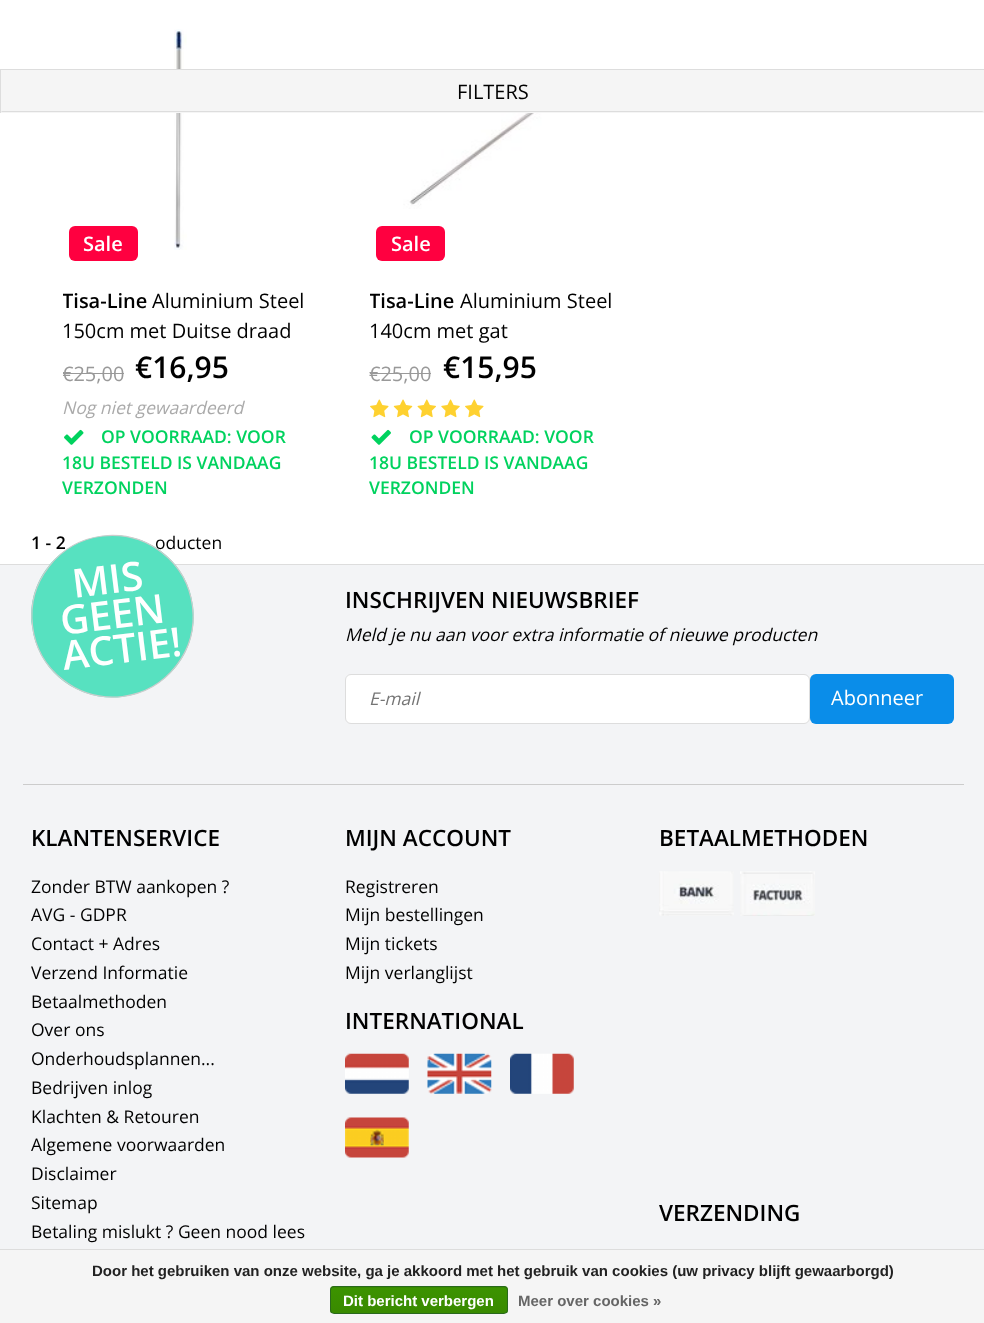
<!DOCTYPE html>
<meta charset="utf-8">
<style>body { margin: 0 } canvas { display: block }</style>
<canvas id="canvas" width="984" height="1323"></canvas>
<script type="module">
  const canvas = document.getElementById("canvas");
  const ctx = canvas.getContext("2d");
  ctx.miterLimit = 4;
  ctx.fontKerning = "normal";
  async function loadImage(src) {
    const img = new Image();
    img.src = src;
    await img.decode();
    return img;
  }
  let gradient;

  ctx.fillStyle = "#ffffff";
  ctx.fillRect(0, 0, 984, 1323);
  ctx.drawImage(await loadImage("img1.png"), 174, 29, 13, 221);
  ctx.fillStyle = "#dddddd";
  ctx.fillRect(0, 69, 984, 1);
  ctx.fillRect(0, 69, 1, 44);
  ctx.fillStyle = "#f5f5f5";
  ctx.fillRect(1, 70, 983, 43);
  ctx.fillStyle = "#dddddd";
  ctx.beginPath();
  ctx.moveTo(984, 112);
  ctx.lineTo(1, 112);
  ctx.lineTo(2, 111);
  ctx.lineTo(982, 111);
  ctx.closePath();
  ctx.fill();
  ctx.font = "20px Open Sans";
  ctx.fillStyle = "#000000";
  ctx.fillText("FILTERS", 457, 99);
  ctx.fillStyle = "#ff0040";
  ctx.beginPath();
  ctx.roundRect(69, 226, 69, 35, 6);
  ctx.fill();
  ctx.font = "600 20px Open Sans";
  ctx.fillStyle = "#ffffff";
  ctx.fillText("Sale", 83, 251);
  ctx.save();
  ctx.beginPath();
  ctx.rect(63, 286, 246, 60);
  ctx.clip();
  ctx.fillStyle = "#000000";
  ctx.fillText("Tisa-Line", 62, 308);
  ctx.restore();
  ctx.font = "20px Open Sans";
  ctx.fillStyle = "#000000";
  ctx.fillText("Aluminium Steel", 152, 308);
  ctx.fillText("150cm met Duitse draad", 62, 338);
  ctx.save();
  ctx.beginPath();
  ctx.rect(63, 346, 246, 42);
  ctx.clip();
  ctx.fillStyle = "#999999";
  ctx.fillText("€25,00", 62, 381);
  ctx.restore();
  ctx.fillStyle = "#999999";
  ctx.fillRect(63, 373, 61, 1);
  ctx.font = "600 30px Open Sans";
  ctx.fillStyle = "#000000";
  ctx.fillText("€16,95", 135, 378);
  ctx.font = "italic 17.5px Open Sans";
  ctx.fillStyle = "#aaaaaa";
  ctx.fillText("Nog niet gewaardeerd", 62, 414);
  ctx.drawImage(await loadImage("img2.png"), 64, 429, 20, 16);
  ctx.font = "600 17.5px Open Sans";
  ctx.fillStyle = "#00d25e";
  ctx.fillText("OP VOORRAAD: VOOR", 101, 443);
  ctx.fillText("18U BESTELD IS VANDAAG", 62, 469);
  ctx.fillText("VERZONDEN", 62, 494);
  ctx.drawImage(await loadImage("img3.png"), 403, 113, 179, 96);
  ctx.fillStyle = "#ff0040";
  ctx.beginPath();
  ctx.roundRect(376, 226, 69, 35, 6);
  ctx.fill();
  ctx.font = "600 20px Open Sans";
  ctx.fillStyle = "#ffffff";
  ctx.fillText("Sale", 391, 251);
  ctx.save();
  ctx.beginPath();
  ctx.rect(370, 286, 246, 60);
  ctx.clip();
  ctx.fillStyle = "#000000";
  ctx.fillText("Tisa-Line", 369, 308);
  ctx.restore();
  ctx.font = "20px Open Sans";
  ctx.fillStyle = "#000000";
  ctx.fillText("Aluminium Steel", 460, 308);
  ctx.fillText("140cm met gat", 369, 338);
  ctx.fillStyle = "#999999";
  ctx.fillText("€25,00", 369, 381);
  ctx.fillRect(370, 373, 61, 1);
  ctx.font = "600 30px Open Sans";
  ctx.fillStyle = "#000000";
  ctx.fillText("€15,95", 443, 378);
  ctx.drawImage(await loadImage("img4.png"), 370, 399, 19, 19);
  ctx.drawImage(await loadImage("img5.png"), 393, 399, 20, 19);
  ctx.drawImage(await loadImage("img6.png"), 417, 399, 19, 19);
  ctx.drawImage(await loadImage("img7.png"), 441, 399, 19, 19);
  ctx.drawImage(await loadImage("img4.png"), 465, 399, 19, 19);
  ctx.drawImage(await loadImage("img8.png"), 371, 429, 20, 16);
  ctx.font = "600 17.5px Open Sans";
  ctx.fillStyle = "#00d25e";
  ctx.fillText("OP VOORRAAD: VOOR", 409, 443);
  ctx.fillText("18U BESTELD IS VANDAAG", 369, 469);
  ctx.fillText("VERZONDEN", 369, 494);
  ctx.fillStyle = "#000000";
  ctx.fillText("1 - 2", 31, 549);
  ctx.font = "17.5px Open Sans";
  ctx.fillText("oducten", 155, 549);
  ctx.fillStyle = "#f3f4f6";
  ctx.fillRect(0, 565, 984, 684);
  ctx.fillStyle = "#dddddd";
  ctx.fillRect(0, 564, 984, 1);
  ctx.fillStyle = "#57e1c0";
  ctx.beginPath();
  ctx.moveTo(103, 536);
  ctx.bezierCurveTo(147, 530, 188, 562, 193, 606);
  ctx.bezierCurveTo(199, 651, 167, 691, 122, 697);
  ctx.bezierCurveTo(78, 702, 37, 671, 32, 626);
  ctx.bezierCurveTo(26, 582, 58, 541, 103, 536);
  ctx.closePath();
  ctx.fill();
  ctx.beginPath();
  ctx.moveTo(102.5, 536);
  ctx.bezierCurveTo(147, 531, 187, 562, 192.5, 606.5);
  ctx.bezierCurveTo(198, 650.5, 166.5, 691, 122.5, 696.5);
  ctx.bezierCurveTo(78, 701.5, 38, 670.5, 32.5, 626);
  ctx.bezierCurveTo(27, 582, 58.5, 541.5, 102.5, 536);
  ctx.closePath();
  ctx.strokeStyle = "#cccccc";
  ctx.lineWidth = 1.2;
  ctx.stroke();
  ctx.font = "600 40px Open Sans";
  ctx.fillStyle = "#ffffff";
  ctx.save();
  ctx.translate(74, 598);
  ctx.rotate(-7 * Math.PI / 180);
  ctx.fillText("MIS", 0, 0);
  ctx.restore();
  ctx.save();
  ctx.translate(62, 635);
  ctx.rotate(-7 * Math.PI / 180);
  ctx.fillText("GEEN", 0, 0);
  ctx.restore();
  ctx.save();
  ctx.translate(64, 670);
  ctx.rotate(-7 * Math.PI / 180);
  ctx.fillText("ACTIE!", 0, 0);
  ctx.restore();
  ctx.font = "600 22.5px Open Sans";
  ctx.fillStyle = "#000000";
  ctx.fillText("INSCHRIJVEN NIEUWSBRIEF", 345, 608);
  ctx.font = "italic 17.5px Open Sans";
  ctx.fillText("Meld je nu aan voor extra informatie of nieuwe producten", 345, 641);
  ctx.fillStyle = "#ffffff";
  ctx.beginPath();
  ctx.roundRect(345.5, 674.5, 464, 49, 5.5);
  ctx.fill();
  ctx.strokeStyle = "#dddddd";
  ctx.lineWidth = 1;
  ctx.stroke();
  ctx.fillStyle = "#757575";
  ctx.fillText("E-mail", 369, 705);
  ctx.fillStyle = "#0a8de9";
  ctx.beginPath();
  ctx.roundRect(810, 674, 144, 50, 6);
  ctx.fill();
  ctx.font = "20px Open Sans";
  ctx.fillStyle = "#ffffff";
  ctx.fillText("Abonneer", 831, 705);
  ctx.fillStyle = "#cccccc";
  ctx.fillRect(23, 784, 941, 1);
  ctx.font = "600 22.5px Open Sans";
  ctx.fillStyle = "#000000";
  ctx.fillText("KLANTENSERVICE", 31, 846);
  ctx.font = "17.5px Open Sans";
  ctx.fillText("Zonder BTW aankopen ?", 31, 893);
  ctx.fillText("AVG - GDPR", 31, 921);
  ctx.fillText("Contact + Adres", 31, 950);
  ctx.fillText("Verzend Informatie", 31, 979);
  ctx.fillText("Betaalmethoden", 31, 1008);
  ctx.fillText("Over ons", 31, 1036);
  ctx.fillText("Onderhoudsplannen...", 31, 1065);
  ctx.fillText("Bedrijven inlog", 31, 1094);
  ctx.fillText("Klachten & Retouren", 31, 1123);
  ctx.fillText("Algemene voorwaarden", 31, 1151);
  ctx.fillText("Disclaimer", 31, 1180);
  ctx.fillText("Sitemap", 31, 1209);
  ctx.fillText("Betaling mislukt ? Geen nood lees", 31, 1238);
  ctx.font = "600 22.5px Open Sans";
  ctx.fillText("MIJN ACCOUNT", 345, 846);
  ctx.font = "17.5px Open Sans";
  ctx.fillText("Registreren", 345, 893);
  ctx.fillText("Mijn bestellingen", 345, 921);
  ctx.fillText("Mijn tickets", 345, 950);
  ctx.fillText("Mijn verlanglijst", 345, 979);
  ctx.font = "600 22.5px Open Sans";
  ctx.fillText("INTERNATIONAL", 345, 1029);
  ctx.drawImage(await loadImage("img9.png"), 345, 1053, 64, 41);
  ctx.drawImage(await loadImage("img10.png"), 427, 1053, 65, 41);
  ctx.drawImage(await loadImage("img11.png"), 510, 1053, 64, 41);
  ctx.drawImage(await loadImage("img12.png"), 345, 1117, 64, 41);
  ctx.fillText("BETAALMETHODEN", 659, 846);
  ctx.drawImage(await loadImage("img13.png"), 659, 871, 75, 45);
  ctx.drawImage(await loadImage("img14.png"), 740, 871, 75, 45);
  ctx.fillText("VERZENDING", 659, 1221);
  ctx.fillStyle = "#f5f5f5";
  ctx.fillRect(0, 1250, 984, 73);
  ctx.fillStyle = "#dddddd";
  ctx.fillRect(0, 1249, 984, 1);
  ctx.font = "bold 15px Liberation Sans";
  ctx.fillStyle = "#222222";
  ctx.fillText("Door het gebruiken van onze website, ga je akkoord met het gebruik van cookies (uw privacy blijft gewaarborgd)", 92, 1276);
  ctx.save();
  ctx.beginPath();
  ctx.roundRect(330, 1286, 178, 28, 4);
  ctx.clip();
  gradient = ctx.createLinearGradient(419, 1263, 419, 1288);
  gradient.addColorStop(0, "#3c9300");
  gradient.addColorStop(1, "#398a00");
  ctx.fillStyle = gradient;
  ctx.fillRect(330, 1286, 178, 2);
  gradient = ctx.createLinearGradient(419, 1288, 419, 1313);
  gradient.addColorStop(0, "#3c9300");
  gradient.addColorStop(1, "#398a00");
  ctx.fillStyle = gradient;
  ctx.fillRect(330, 1288, 178, 25);
  ctx.restore();
  ctx.beginPath();
  ctx.roundRect(330.5, 1286.5, 177, 27, 3.5);
  ctx.strokeStyle = "#29691d";
  ctx.stroke();
  ctx.fillStyle = "#ffffff";
  ctx.fillText("Dit bericht verbergen", 343, 1306);
  ctx.fillStyle = "#666666";
  ctx.fillText("Meer over cookies »", 518, 1306);
</script>
